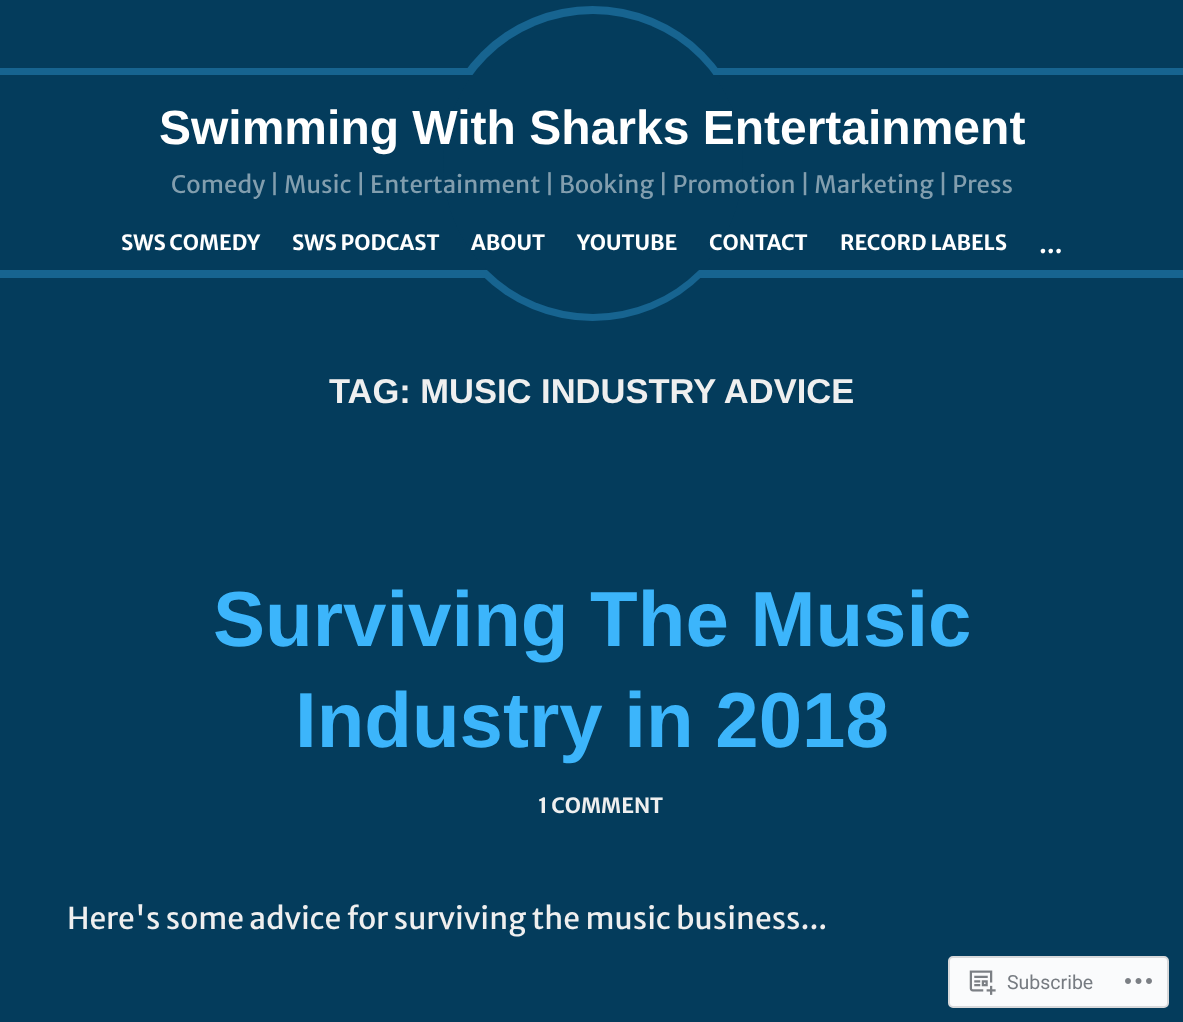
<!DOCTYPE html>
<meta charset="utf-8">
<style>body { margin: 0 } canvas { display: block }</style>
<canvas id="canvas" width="1183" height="1022"></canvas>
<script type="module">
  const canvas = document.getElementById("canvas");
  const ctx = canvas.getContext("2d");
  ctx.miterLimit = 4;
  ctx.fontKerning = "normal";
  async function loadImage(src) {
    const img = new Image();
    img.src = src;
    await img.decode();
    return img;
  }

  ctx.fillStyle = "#043c5c";
  ctx.fillRect(0, 0, 1183, 1022);
  ctx.fillStyle = "#176490";
  ctx.beginPath();
  ctx.arc(592.5, 163.5, 157.5, 0, Math.PI * 2);
  ctx.fill();
  ctx.fillStyle = "#043c5c";
  ctx.fillRect(435, 75, 315, 195);
  ctx.fillStyle = "#176490";
  ctx.fillRect(0, 68, 1183, 7);
  ctx.fillRect(0, 270, 1183, 8);
  ctx.fillStyle = "#043c5c";
  ctx.beginPath();
  ctx.arc(593, 164, 150, 0, Math.PI * 2);
  ctx.fill();
  ctx.font = "bold 48px Liberation Sans";
  ctx.fillStyle = "#ffffff";
  ctx.fillText("Swimming With Sharks Entertainment", 159, 144);
  ctx.font = "24px Merriweather Sans";
  ctx.fillStyle = "#829eae";
  ctx.fillText("Comedy | Music | Entertainment | Booking | Promotion | Marketing | Press", 171, 193);
  ctx.font = "bold 21px Merriweather Sans";
  ctx.fillStyle = "#ffffff";
  ctx.fillText("SWS COMEDY", 121, 250);
  ctx.fillText("SWS PODCAST", 292, 250);
  ctx.fillText("ABOUT", 471, 250);
  ctx.fillText("YOUTUBE", 577, 250);
  ctx.fillText("CONTACT", 709, 250);
  ctx.fillText("RECORD LABELS", 840, 250);
  ctx.font = "bold 24px Merriweather Sans";
  ctx.fillText("…", 1039, 253);
  ctx.font = "bold 34.5px Liberation Sans";
  ctx.fillStyle = "#efefef";
  ctx.fillText("TAG: MUSIC INDUSTRY ADVICE", 329, 403);
  ctx.font = "bold 78px Liberation Sans";
  ctx.fillStyle = "#3cb5fb";
  ctx.fillText("Surviving The Music", 213, 646);
  ctx.fillText("Industry in 2018", 295, 747);
  ctx.font = "bold 21px Merriweather Sans";
  ctx.fillStyle = "#efefef";
  ctx.fillText("1 COMMENT", 538, 813);
  ctx.font = "30px Merriweather Sans";
  ctx.fillText("Here's some advice for surviving the music business...", 67, 929);
  ctx.fillStyle = "#fafbfc";
  ctx.beginPath();
  ctx.roundRect(949, 957, 219, 50, 4);
  ctx.fill();
  ctx.strokeStyle = "#d8d9db";
  ctx.lineWidth = 2;
  ctx.stroke();
  ctx.drawImage(await loadImage("img1.png"), 969, 970, 27, 25);
  ctx.font = "19.5px Roboto";
  ctx.fillStyle = "#767b81";
  ctx.fillText("Subscribe", 1007, 989);
  ctx.drawImage(await loadImage("img2.png"), 1125, 978, 27, 6);
</script>
